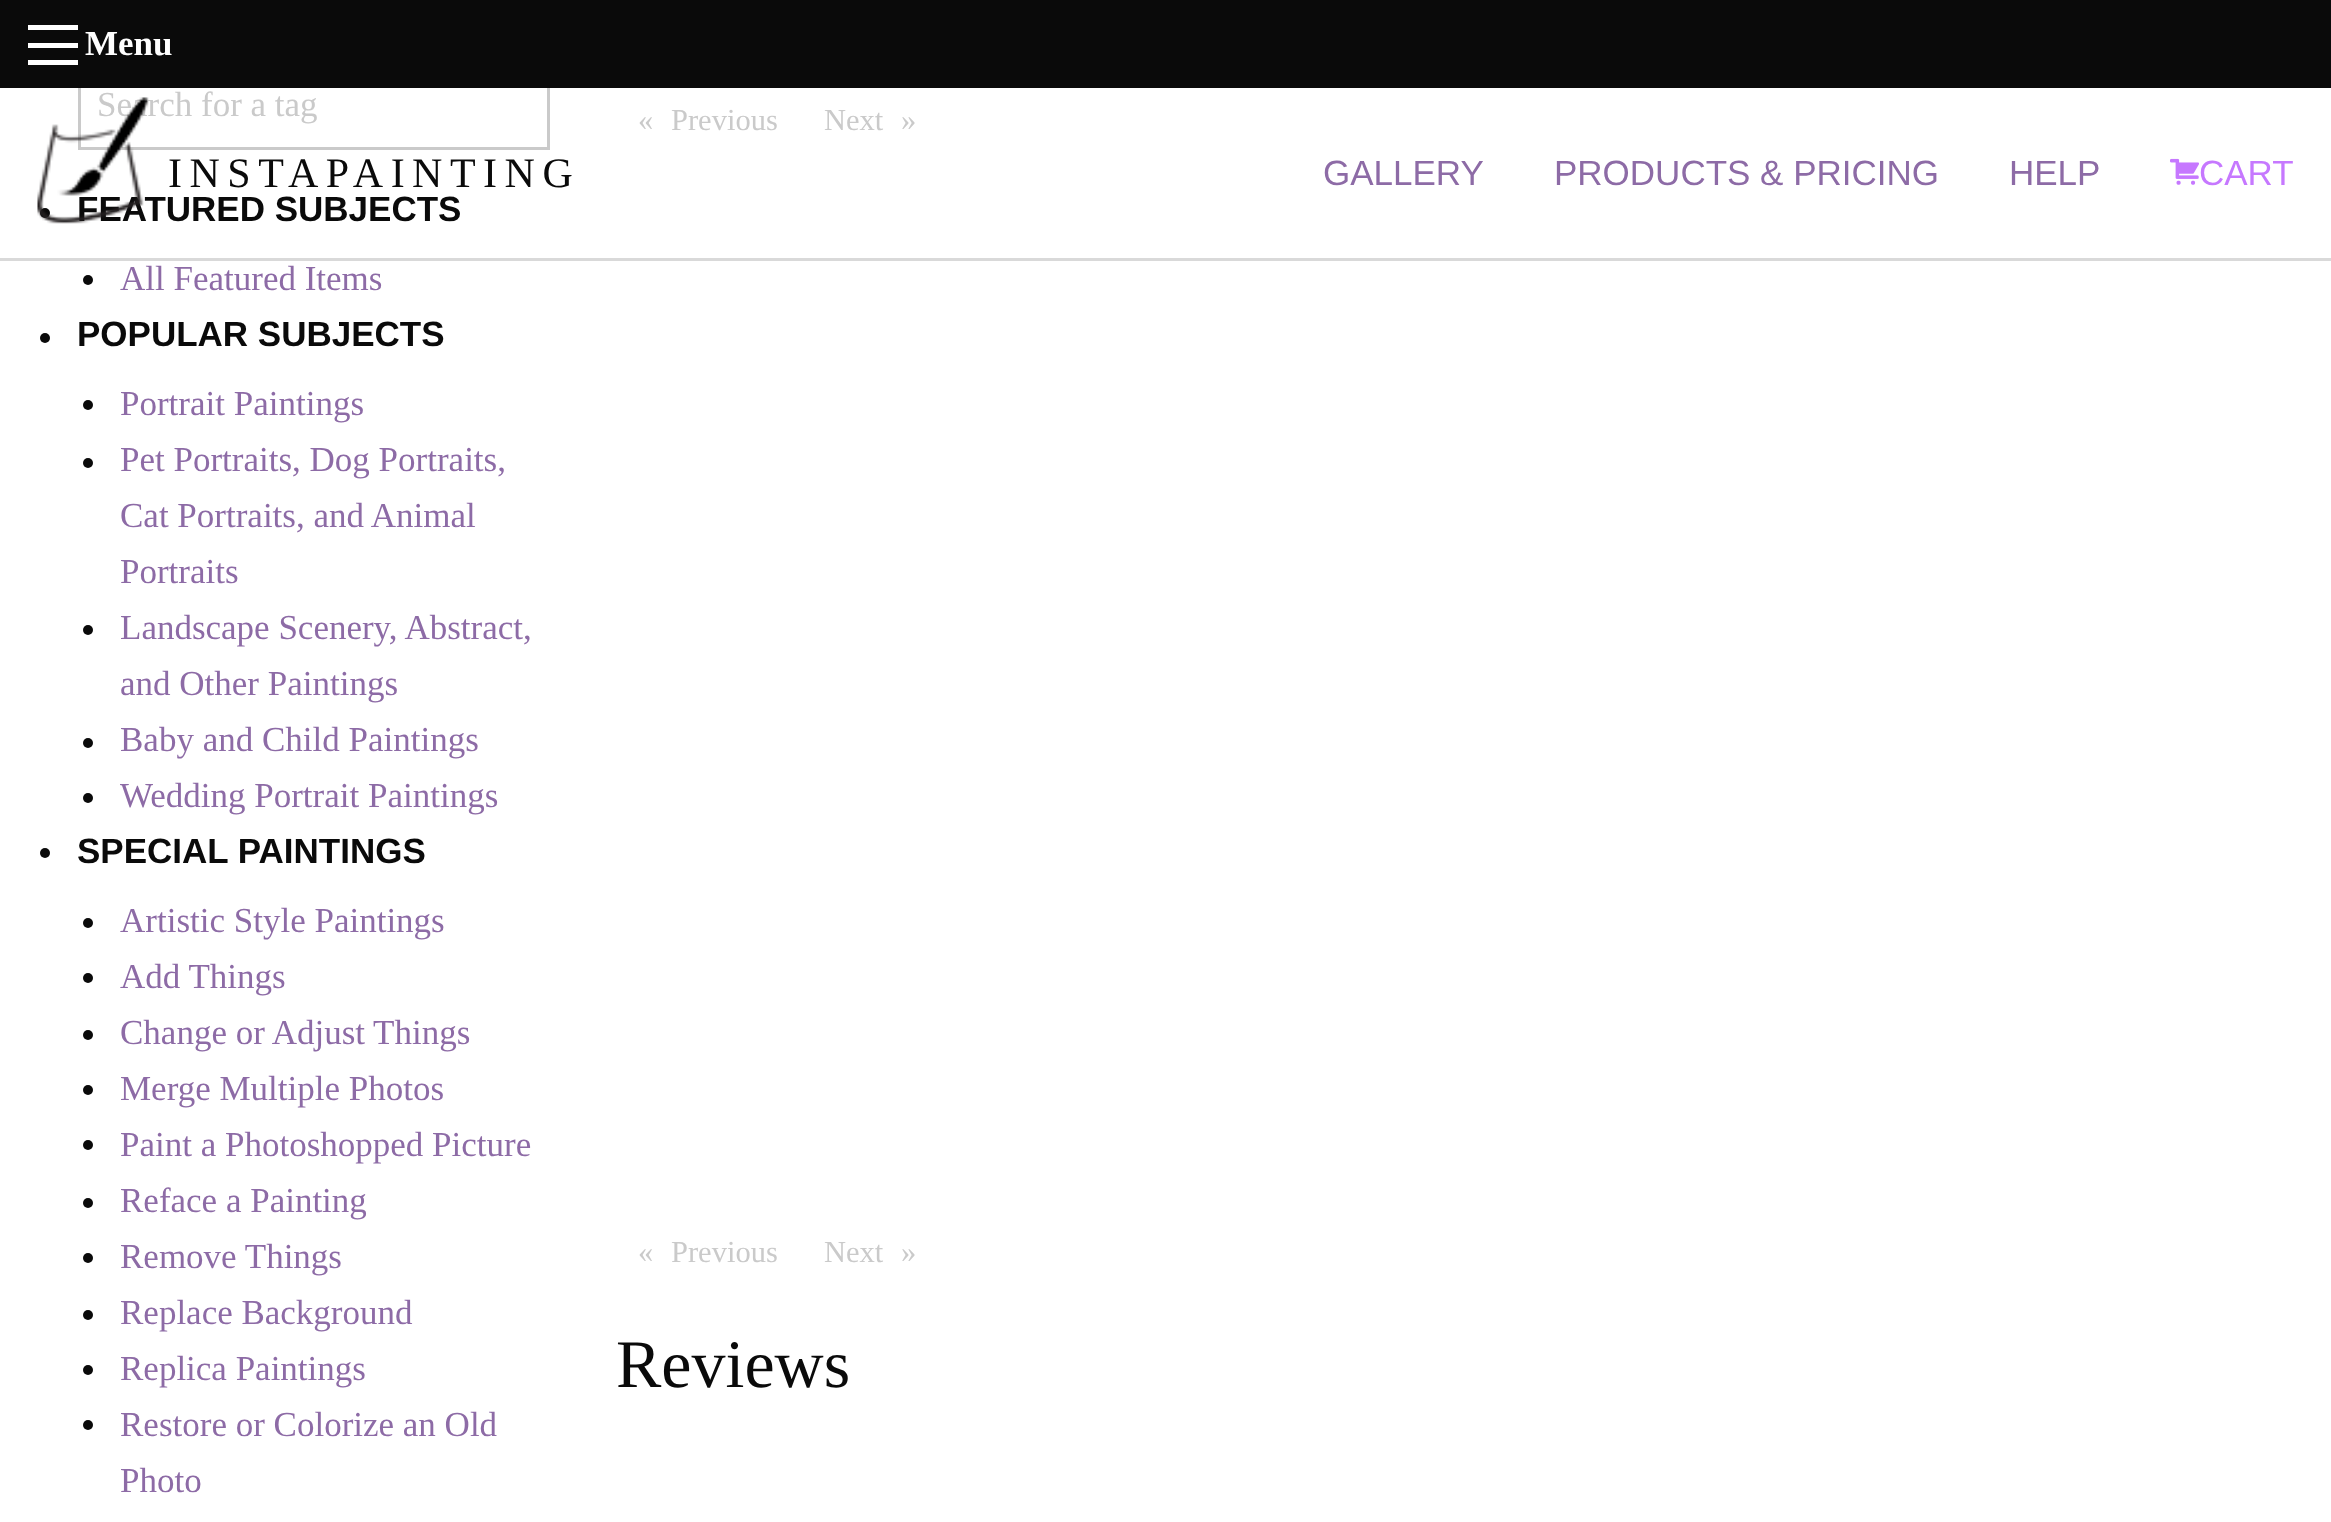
<!DOCTYPE html>
<meta charset="utf-8">
<style>body { margin: 0 } canvas { display: block }</style>
<canvas id="canvas" width="2331" height="1522"></canvas>
<script type="module">
  const canvas = document.getElementById("canvas");
  const ctx = canvas.getContext("2d");
  ctx.miterLimit = 4;
  ctx.fontKerning = "normal";
  async function loadImage(src) {
    const img = new Image();
    img.src = src;
    await img.decode();
    return img;
  }

  ctx.fillStyle = "#ffffff";
  ctx.fillRect(0, 0, 2331, 1522);
  ctx.strokeStyle = "#cacaca";
  ctx.lineWidth = 3;
  ctx.strokeRect(79.5, 64.5, 469, 84);
  ctx.fillStyle = "#0a0a0a";
  ctx.fillRect(0, 0, 2331, 88);
  ctx.fillStyle = "#fefefe";
  ctx.fillRect(28, 60, 50, 5);
  ctx.fillRect(28, 43, 50, 5);
  ctx.fillRect(28, 25, 50, 5);
  ctx.font = "bold 35px Liberation Serif";
  ctx.fillText("Menu", 85, 55);
  ctx.fillStyle = "#d9d9d9";
  ctx.fillRect(0, 258, 2331, 3);
  ctx.font = "35px Liberation Serif";
  ctx.fillStyle = "#cacaca";
  ctx.fillText("Search for a tag", 97, 116);
  ctx.fillStyle = "#0a0a0a";
  ctx.beginPath();
  ctx.arc(45, 213, 5, 0, Math.PI * 2);
  ctx.fill();
  ctx.font = "bold 35px Liberation Sans";
  ctx.fillText("FEATURED SUBJECTS", 77, 221);
  ctx.drawImage(await loadImage("img1.png"), 37, 97, 112, 127);
  ctx.letterSpacing = "7.5px";
  ctx.font = "42px Liberation Serif";
  ctx.fillText("INSTAPAINTING", 168, 187);
  ctx.letterSpacing = "0px";
  ctx.font = "35px Liberation Sans";
  ctx.fillStyle = "#8d6ba6";
  ctx.fillText("GALLERY", 1323, 185);
  ctx.fillText("PRODUCTS & PRICING", 1554, 185);
  ctx.fillText("HELP", 2009, 185);
  ctx.drawImage(await loadImage("img2.png"), 2170, 158, 29, 27);
  ctx.fillStyle = "#c678ff";
  ctx.fillText("CART", 2199, 185);
  ctx.fillStyle = "#0a0a0a";
  ctx.beginPath();
  ctx.arc(88, 280, 5, 0, Math.PI * 2);
  ctx.fill();
  ctx.font = "35px Liberation Serif";
  ctx.fillStyle = "#8d6ba6";
  ctx.fillText("All Featured Items", 120, 290);
  ctx.fillStyle = "#0a0a0a";
  ctx.beginPath();
  ctx.arc(45, 338, 5, 0, Math.PI * 2);
  ctx.fill();
  ctx.font = "bold 35px Liberation Sans";
  ctx.fillText("POPULAR SUBJECTS", 77, 346);
  ctx.beginPath();
  ctx.arc(88, 405, 5, 0, Math.PI * 2);
  ctx.fill();
  ctx.font = "35px Liberation Serif";
  ctx.fillStyle = "#8d6ba6";
  ctx.fillText("Portrait Paintings", 120, 415);
  ctx.fillStyle = "#0a0a0a";
  ctx.beginPath();
  ctx.arc(88, 463, 5, 0, Math.PI * 2);
  ctx.fill();
  ctx.fillStyle = "#8d6ba6";
  ctx.fillText("Pet Portraits, Dog Portraits,", 120, 471);
  ctx.fillText("Cat Portraits, and Animal", 120, 527);
  ctx.fillText("Portraits", 120, 583);
  ctx.fillStyle = "#0a0a0a";
  ctx.beginPath();
  ctx.arc(88, 630, 5, 0, Math.PI * 2);
  ctx.fill();
  ctx.fillStyle = "#8d6ba6";
  ctx.fillText("Landscape Scenery, Abstract,", 120, 639);
  ctx.fillText("and Other Paintings", 120, 695);
  ctx.fillStyle = "#0a0a0a";
  ctx.beginPath();
  ctx.arc(88, 743, 5, 0, Math.PI * 2);
  ctx.fill();
  ctx.fillStyle = "#8d6ba6";
  ctx.fillText("Baby and Child Paintings", 120, 751);
  ctx.fillStyle = "#0a0a0a";
  ctx.beginPath();
  ctx.arc(88, 798, 5, 0, Math.PI * 2);
  ctx.fill();
  ctx.fillStyle = "#8d6ba6";
  ctx.fillText("Wedding Portrait Paintings", 120, 807);
  ctx.fillStyle = "#0a0a0a";
  ctx.beginPath();
  ctx.arc(45, 853, 5, 0, Math.PI * 2);
  ctx.fill();
  ctx.font = "bold 35px Liberation Sans";
  ctx.fillText("SPECIAL PAINTINGS", 77, 863);
  ctx.beginPath();
  ctx.arc(88, 923, 5, 0, Math.PI * 2);
  ctx.fill();
  ctx.font = "35px Liberation Serif";
  ctx.fillStyle = "#8d6ba6";
  ctx.fillText("Artistic Style Paintings", 120, 932);
  ctx.fillStyle = "#0a0a0a";
  ctx.beginPath();
  ctx.arc(88, 978, 5, 0, Math.PI * 2);
  ctx.fill();
  ctx.fillStyle = "#8d6ba6";
  ctx.fillText("Add Things", 120, 988);
  ctx.fillStyle = "#0a0a0a";
  ctx.beginPath();
  ctx.arc(88, 1035, 5, 0, Math.PI * 2);
  ctx.fill();
  ctx.fillStyle = "#8d6ba6";
  ctx.fillText("Change or Adjust Things", 120, 1044);
  ctx.fillStyle = "#0a0a0a";
  ctx.beginPath();
  ctx.arc(88, 1090, 5, 0, Math.PI * 2);
  ctx.fill();
  ctx.fillStyle = "#8d6ba6";
  ctx.fillText("Merge Multiple Photos", 120, 1100);
  ctx.fillStyle = "#0a0a0a";
  ctx.beginPath();
  ctx.arc(88, 1145, 5, 0, Math.PI * 2);
  ctx.fill();
  ctx.fillStyle = "#8d6ba6";
  ctx.fillText("Paint a Photoshopped Picture", 120, 1156);
  ctx.fillStyle = "#0a0a0a";
  ctx.beginPath();
  ctx.arc(88, 1203, 5, 0, Math.PI * 2);
  ctx.fill();
  ctx.fillStyle = "#8d6ba6";
  ctx.fillText("Reface a Painting", 120, 1212);
  ctx.fillStyle = "#0a0a0a";
  ctx.beginPath();
  ctx.arc(88, 1258, 5, 0, Math.PI * 2);
  ctx.fill();
  ctx.fillStyle = "#8d6ba6";
  ctx.fillText("Remove Things", 120, 1268);
  ctx.fillStyle = "#0a0a0a";
  ctx.beginPath();
  ctx.arc(88, 1315, 5, 0, Math.PI * 2);
  ctx.fill();
  ctx.fillStyle = "#8d6ba6";
  ctx.fillText("Replace Background", 120, 1324);
  ctx.fillStyle = "#0a0a0a";
  ctx.beginPath();
  ctx.arc(88, 1370, 5, 0, Math.PI * 2);
  ctx.fill();
  ctx.fillStyle = "#8d6ba6";
  ctx.fillText("Replica Paintings", 120, 1380);
  ctx.fillStyle = "#0a0a0a";
  ctx.beginPath();
  ctx.arc(88, 1425, 5, 0, Math.PI * 2);
  ctx.fill();
  ctx.fillStyle = "#8d6ba6";
  ctx.fillText("Restore or Colorize an Old", 120, 1436);
  ctx.fillText("Photo", 120, 1492);
  ctx.font = "30.5px Liberation Serif";
  ctx.fillStyle = "#cacaca";
  ctx.fillText("«", 638, 130);
  ctx.fillText("Previous", 671, 130);
  ctx.fillText("Next", 824, 130);
  ctx.fillText("»", 901, 130);
  ctx.fillText("«", 638, 1262);
  ctx.fillText("Previous", 671, 1262);
  ctx.fillText("Next", 824, 1262);
  ctx.fillText("»", 901, 1262);
  ctx.font = "68px Liberation Serif";
  ctx.fillStyle = "#0a0a0a";
  ctx.fillText("Reviews", 616, 1387);
</script>
